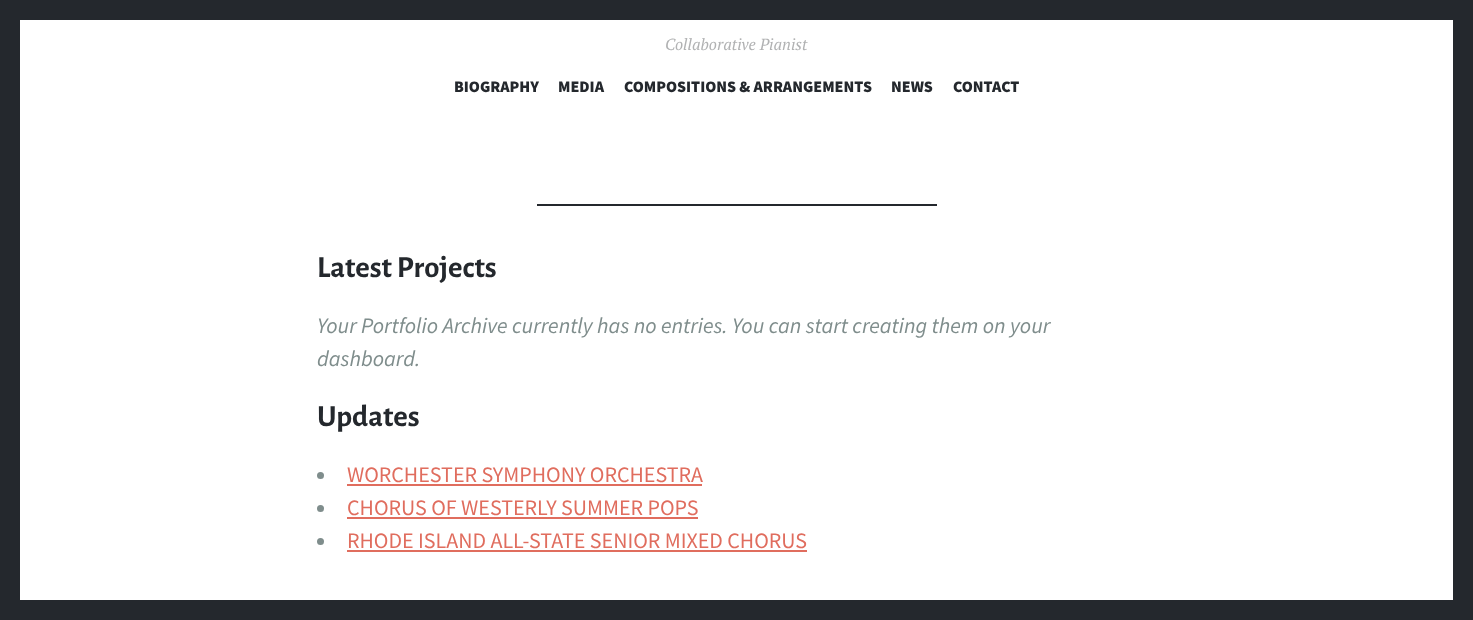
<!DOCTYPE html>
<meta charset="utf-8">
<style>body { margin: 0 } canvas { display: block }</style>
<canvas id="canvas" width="1473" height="620"></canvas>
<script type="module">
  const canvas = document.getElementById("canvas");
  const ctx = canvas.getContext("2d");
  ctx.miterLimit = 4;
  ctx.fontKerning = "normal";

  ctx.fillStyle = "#24282d";
  ctx.fillRect(0, 0, 1473, 620);
  ctx.fillStyle = "#ffffff";
  ctx.fillRect(20, 20, 1433, 580);
  ctx.font = "italic 16px PT Serif";
  ctx.fillStyle = "#b1b2b3";
  ctx.fillText("Collaborative Pianist", 665, 50);
  ctx.font = "900 16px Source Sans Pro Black";
  ctx.fillStyle = "#24282d";
  ctx.fillText("BIOGRAPHY", 454, 92);
  ctx.fillText("MEDIA", 558, 92);
  ctx.fillText("COMPOSITIONS & ARRANGEMENTS", 624, 92);
  ctx.fillText("NEWS", 891, 92);
  ctx.fillText("CONTACT", 953, 92);
  ctx.fillRect(537, 204, 400, 2);
  ctx.font = "bold 30.75px Alegreya Sans";
  ctx.fillText("Latest Projects", 317, 277);
  ctx.font = "italic 22px Source Sans Pro";
  ctx.fillStyle = "#7f8d8c";
  ctx.fillText("Your Portfolio Archive currently has no entries. You can start creating them on your", 317, 333);
  ctx.fillText("dashboard.", 317, 366);
  ctx.font = "bold 30.75px Alegreya Sans";
  ctx.fillStyle = "#24282d";
  ctx.fillText("Updates", 317, 426);
  ctx.fillStyle = "#7f8d8c";
  ctx.beginPath();
  ctx.arc(320.5, 475.5, 3.5, 0, Math.PI * 2);
  ctx.fill();
  ctx.font = "22px Source Sans Pro";
  ctx.fillStyle = "#e06d5e";
  ctx.fillText("WORCHESTER SYMPHONY ORCHESTRA", 347, 482);
  ctx.fillRect(347, 484, 355, 2);
  ctx.fillStyle = "#7f8d8c";
  ctx.beginPath();
  ctx.arc(320.5, 508.5, 3.5, 0, Math.PI * 2);
  ctx.fill();
  ctx.fillStyle = "#e06d5e";
  ctx.fillText("CHORUS OF WESTERLY SUMMER POPS", 347, 515);
  ctx.fillRect(347, 517, 351, 2);
  ctx.fillStyle = "#7f8d8c";
  ctx.beginPath();
  ctx.arc(320.5, 541.5, 3.5, 0, Math.PI * 2);
  ctx.fill();
  ctx.fillStyle = "#e06d5e";
  ctx.fillText("RHODE ISLAND ALL-STATE SENIOR MIXED CHORUS", 347, 548);
  ctx.fillRect(347, 550, 460, 2);
</script>
